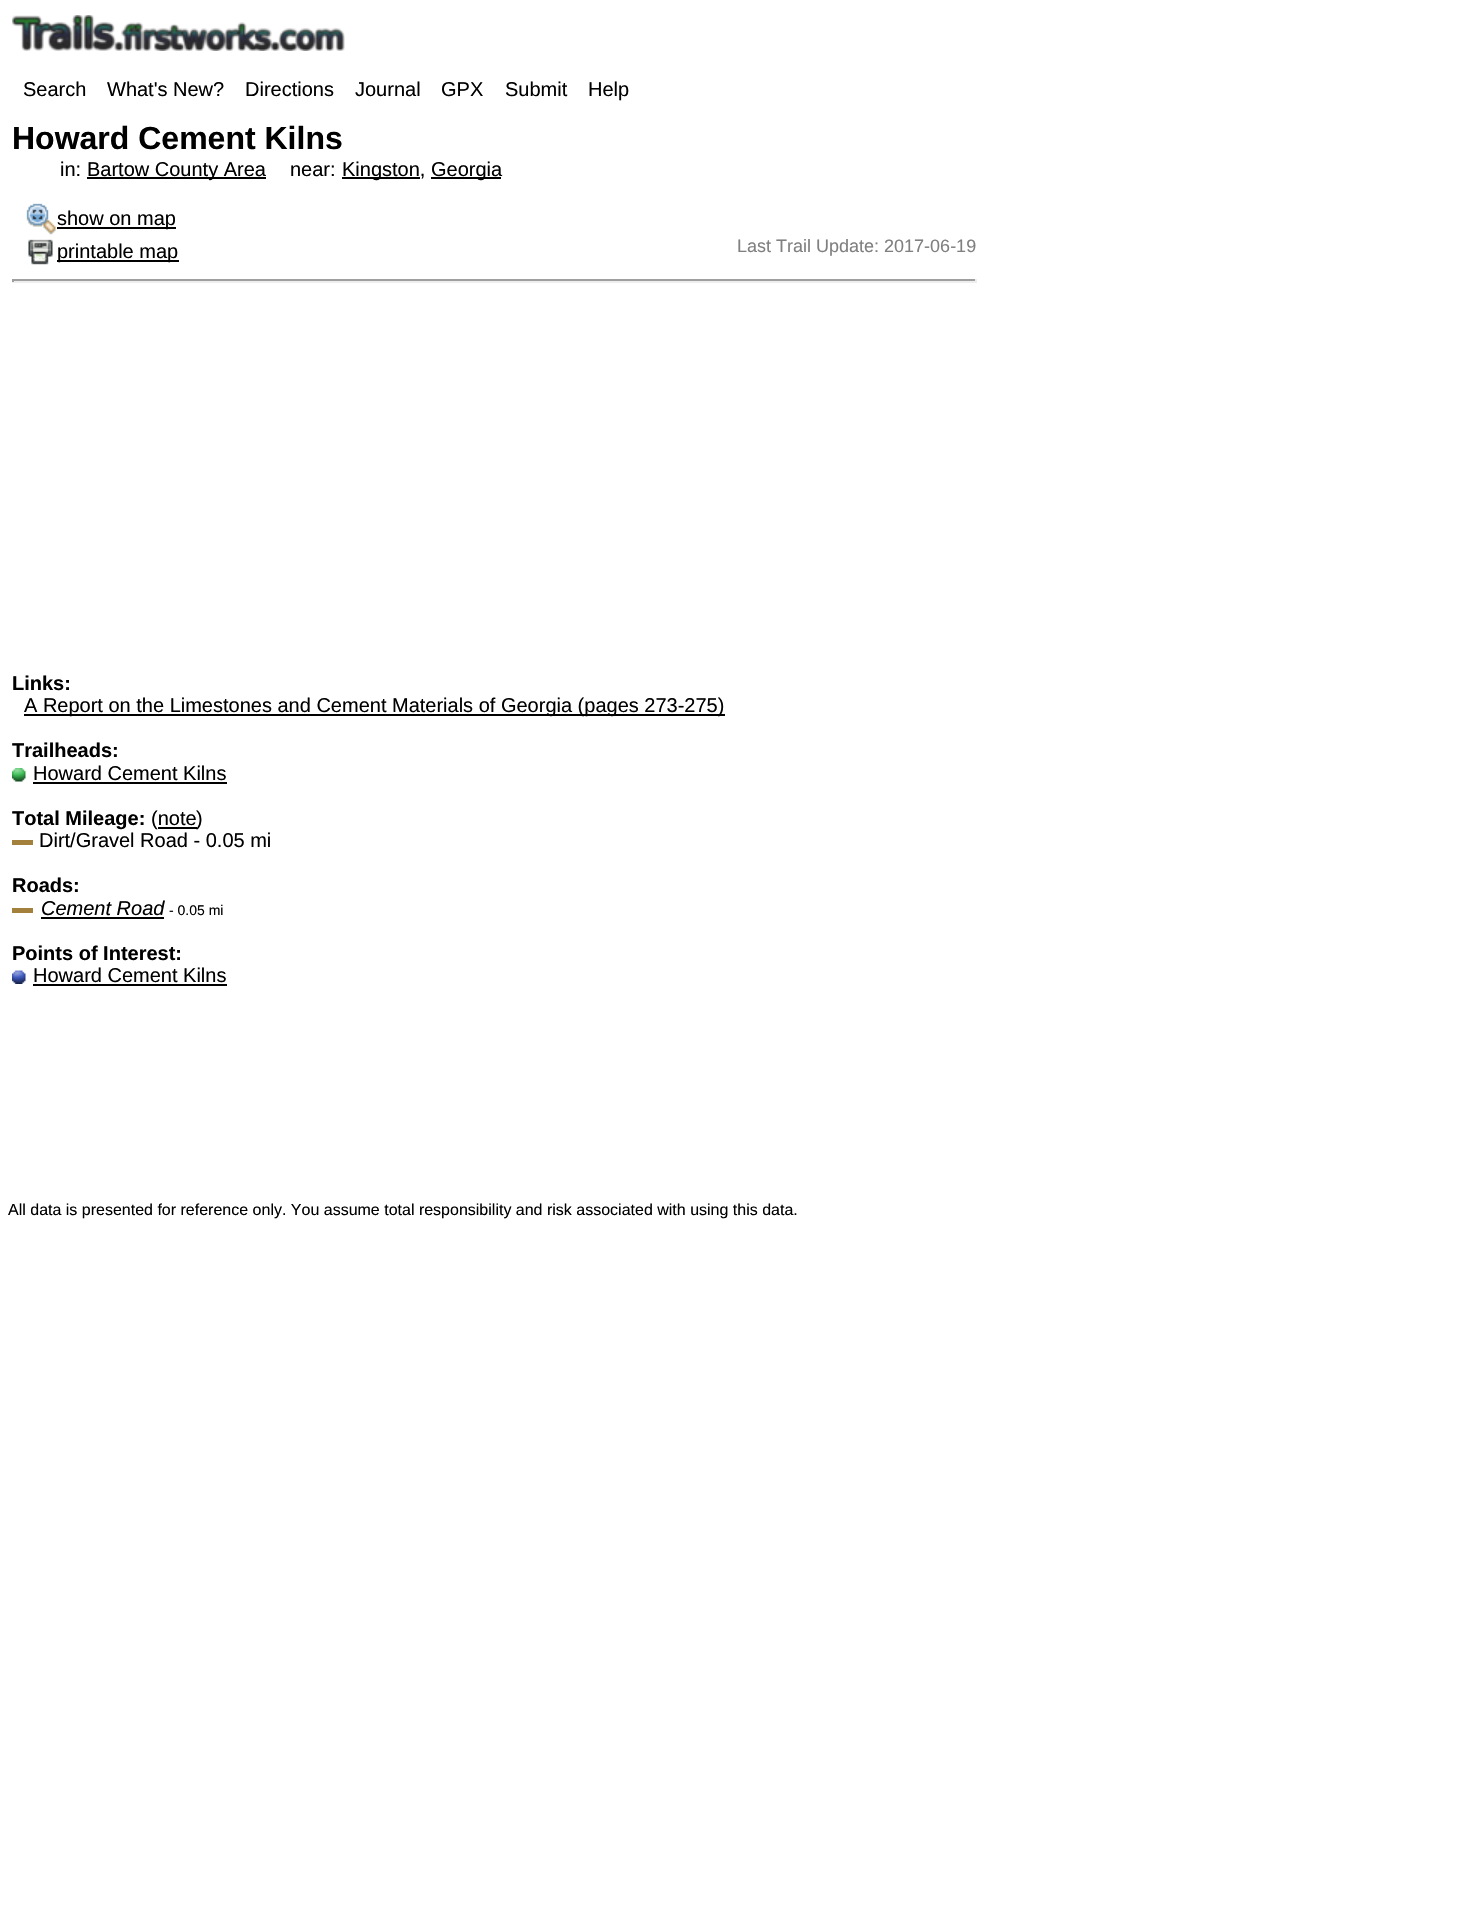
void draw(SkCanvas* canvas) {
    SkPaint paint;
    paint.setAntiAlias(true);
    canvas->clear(0xFFFFFFFF);
    canvas->drawImageRect(SkImages::DeferredFromEncodedData(SkData::MakeFromFileName("img1.png")), SkRect::MakeXYWH(12, 15, 333, 36), SkSamplingOptions());
    SkFont font1(fontMgr->matchFamilyStyle("Liberation Sans", SkFontStyle::Normal()), 20);
    font1.setSubpixel(true);
    paint.setColor(0xFF000000);
    canvas->drawString("Search", 23, 96, font1, paint);
    canvas->drawString("What's New?", 107, 96, font1, paint);
    canvas->drawString("Directions", 245, 96, font1, paint);
    canvas->drawString("Journal", 355, 96, font1, paint);
    canvas->drawString("GPX", 441, 96, font1, paint);
    canvas->drawString("Submit", 505, 96, font1, paint);
    canvas->drawString("Help", 588, 96, font1, paint);
    SkFont font2(fontMgr->matchFamilyStyle("Liberation Sans", SkFontStyle::Bold()), 32);
    font2.setSubpixel(true);
    canvas->drawString("Howard Cement Kilns", 12, 149, font2, paint);
    canvas->drawString("in:", 60, 176, font1, paint);
    canvas->drawRect(SkRect::MakeXYWH(87, 177, 179, 2), paint);
    canvas->drawString("Bartow County Area", 87, 176, font1, paint);
    canvas->drawString("near:", 290, 176, font1, paint);
    canvas->drawRect(SkRect::MakeXYWH(342, 177, 78, 2), paint);
    canvas->drawString("Kingston,", 342, 176, font1, paint);
    canvas->drawRect(SkRect::MakeXYWH(431, 177, 70, 2), paint);
    canvas->drawString("Georgia", 431, 176, font1, paint);
    canvas->drawImageRect(SkImages::DeferredFromEncodedData(SkData::MakeFromFileName("img2.png")), SkRect::MakeXYWH(26, 203, 30, 32), SkSamplingOptions());
    canvas->drawRect(SkRect::MakeXYWH(57, 227, 119, 2), paint);
    canvas->drawString("show on map", 57, 225, font1, paint);
    canvas->drawImageRect(SkImages::DeferredFromEncodedData(SkData::MakeFromFileName("img3.png")), SkRect::MakeXYWH(28, 239, 25, 26), SkSamplingOptions());
    canvas->drawRect(SkRect::MakeXYWH(57, 260, 122, 2), paint);
    canvas->drawString("printable map", 57, 258, font1, paint);
    SkFont font3(fontMgr->matchFamilyStyle("Liberation Sans", SkFontStyle::Normal()), 18);
    font3.setSubpixel(true);
    paint.setColor(0xFF808080);
    canvas->drawString("Last Trail Update: 2017-06-19", 737, 252, font3, paint);
    paint.setColor(0xFF9F9F9F);
    canvas->drawRect(SkRect::MakeXYWH(12, 279, 965, 2), paint);
    paint.setColor(0xFFEEEEEE);
    canvas->drawRect(SkRect::MakeXYWH(975, 279, 2, 3), paint);
    canvas->drawRect(SkRect::MakeXYWH(12, 281, 965, 2), paint);
    paint.setColor(0xFF9F9F9F);
    canvas->drawRect(SkRect::MakeXYWH(12, 279, 2, 3), paint);
    SkFont font4(fontMgr->matchFamilyStyle("Liberation Sans", SkFontStyle::Bold()), 20);
    font4.setSubpixel(true);
    paint.setColor(0xFF000000);
    canvas->drawString("Links:", 12, 690, font4, paint);
    canvas->drawRect(SkRect::MakeXYWH(24, 714, 701, 2), paint);
    canvas->drawString("A Report on the Limestones and Cement Materials of Georgia (pages 273-275)", 24, 712, font1, paint);
    canvas->drawString("Trailheads:", 12, 757, font4, paint);
    canvas->drawImageRect(SkImages::DeferredFromEncodedData(SkData::MakeFromFileName("img4.png")), SkRect::MakeXYWH(12, 768, 14, 14), SkSamplingOptions());
    canvas->drawString("Howard Cement Kilns", 33, 780, font1, paint);
    canvas->drawRect(SkRect::MakeXYWH(33, 782, 194, 2), paint);
    canvas->drawString("Total Mileage:", 12, 825, font4, paint);
    canvas->drawString("(note", 151, 825, font1, paint);
    canvas->drawRect(SkRect::MakeXYWH(158, 827, 39, 2), paint);
    canvas->drawString(")", 196, 825, font1, paint);
    paint.setColor(0xFFA3803C);
    canvas->drawRect(SkRect::MakeXYWH(12, 840, 21, 5), paint);
    paint.setColor(0xFF000000);
    canvas->drawString("Dirt/Gravel Road - 0.05 mi", 39, 847, font1, paint);
    canvas->drawString("Roads:", 12, 892, font4, paint);
    paint.setColor(0xFFA3803C);
    canvas->drawRect(SkRect::MakeXYWH(12, 908, 21, 5), paint);
    SkFont font5(fontMgr->matchFamilyStyle("Liberation Sans", SkFontStyle::Italic()), 20);
    font5.setSubpixel(true);
    paint.setColor(0xFF000000);
    canvas->drawString("Cement Road", 41, 915, font5, paint);
    canvas->drawRect(SkRect::MakeXYWH(41, 917, 123, 2), paint);
    SkFont font6(fontMgr->matchFamilyStyle("Liberation Sans", SkFontStyle::Normal()), 14);
    font6.setSubpixel(true);
    canvas->drawString("- 0.05 mi", 169, 915, font6, paint);
    canvas->drawString("Points of Interest:", 12, 960, font4, paint);
    canvas->drawImageRect(SkImages::DeferredFromEncodedData(SkData::MakeFromFileName("img5.png")), SkRect::MakeXYWH(12, 970, 14, 14), SkSamplingOptions());
    canvas->drawString("Howard Cement Kilns", 33, 982, font1, paint);
    canvas->drawRect(SkRect::MakeXYWH(33, 984, 194, 2), paint);
    SkFont font7(fontMgr->matchFamilyStyle("Liberation Sans", SkFontStyle::Normal()), 16);
    font7.setSubpixel(true);
    canvas->drawString("All data is presented for reference only. You assume total responsibility and risk associated with using this data.", 8, 1215, font7, paint);
}
